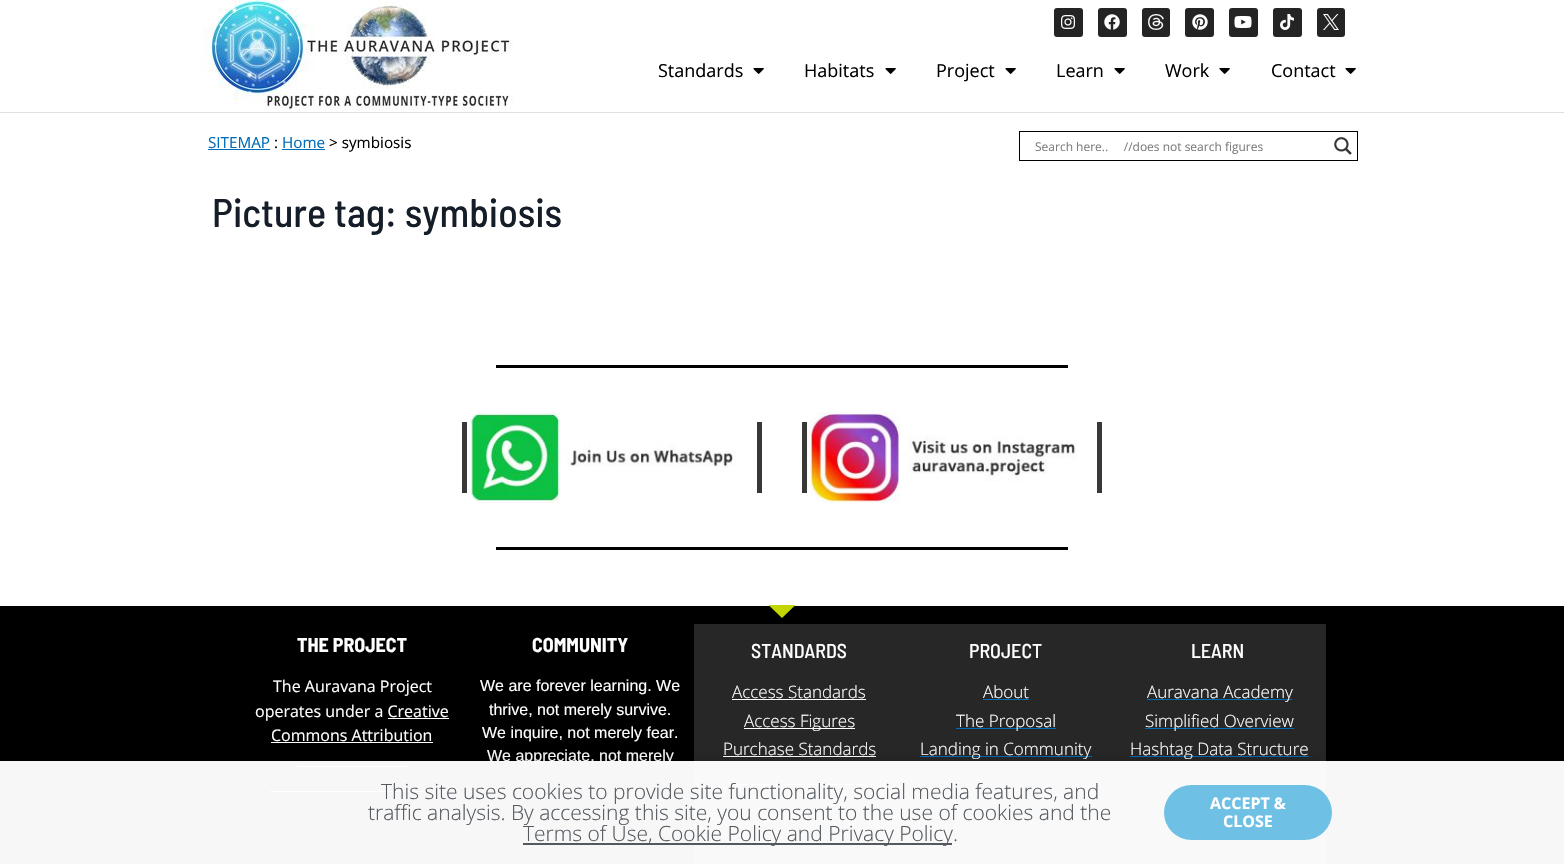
void draw(SkCanvas* canvas) {
    SkPaint paint;
    paint.setAntiAlias(true);
    canvas->clear(0xFFFFFFFF);
    paint.setColor(0xFFE0E0E0);
    canvas->drawRect(SkRect::MakeXYWH(0, 112, 1564, 1), paint);
    canvas->drawImageRect(SkImages::DeferredFromEncodedData(SkData::MakeFromFileName("img1.png")), SkRect::MakeXYWH(202, 0, 312, 110), SkSamplingOptions());
    paint.setColor(0xFF242424);
    canvas->drawRoundRect(SkRect::MakeXYWH(1054, 8, 29, 29), 3, 3, paint);
    canvas->drawImageRect(SkImages::DeferredFromEncodedData(SkData::MakeFromFileName("img2.png")), SkRect::MakeXYWH(1061, 15, 14, 14), SkSamplingOptions());
    canvas->drawRoundRect(SkRect::MakeXYWH(1098, 8, 29, 29), 3, 3, paint);
    canvas->drawImageRect(SkImages::DeferredFromEncodedData(SkData::MakeFromFileName("img3.png")), SkRect::MakeXYWH(1104, 14, 16, 16), SkSamplingOptions());
    canvas->drawRoundRect(SkRect::MakeXYWH(1142, 8, 28, 29), 3, 3, paint);
    canvas->drawImageRect(SkImages::DeferredFromEncodedData(SkData::MakeFromFileName("img4.png")), SkRect::MakeXYWH(1148, 14, 16, 16), SkSamplingOptions());
    canvas->drawRoundRect(SkRect::MakeXYWH(1185, 8, 29, 29), 3, 3, paint);
    canvas->drawImageRect(SkImages::DeferredFromEncodedData(SkData::MakeFromFileName("img5.png")), SkRect::MakeXYWH(1192, 14, 16, 16), SkSamplingOptions());
    canvas->drawRoundRect(SkRect::MakeXYWH(1229, 8, 29, 29), 3, 3, paint);
    canvas->drawImageRect(SkImages::DeferredFromEncodedData(SkData::MakeFromFileName("img6.png")), SkRect::MakeXYWH(1234, 16, 18, 12), SkSamplingOptions());
    canvas->drawRoundRect(SkRect::MakeXYWH(1273, 8, 29, 29), 3, 3, paint);
    canvas->drawImageRect(SkImages::DeferredFromEncodedData(SkData::MakeFromFileName("img7.png")), SkRect::MakeXYWH(1280, 14, 14, 16), SkSamplingOptions());
    canvas->drawRoundRect(SkRect::MakeXYWH(1317, 8, 28, 29), 3, 3, paint);
    canvas->drawImageRect(SkImages::DeferredFromEncodedData(SkData::MakeFromFileName("img8.png")), SkRect::MakeXYWH(1323, 14, 16, 16), SkSamplingOptions());
    SkFont font1(fontMgr->matchFamilyStyle("Open Sans", SkFontStyle::Normal()), 18);
    font1.setSubpixel(true);
    paint.setColor(0xFF000000);
    canvas->drawString("Standards", 658, 77, font1, paint);
    canvas->drawImageRect(SkImages::DeferredFromEncodedData(SkData::MakeFromFileName("img9.png")), SkRect::MakeXYWH(753, 68, 11, 6), SkSamplingOptions());
    canvas->drawString("Habitats", 804, 77, font1, paint);
    canvas->drawImageRect(SkImages::DeferredFromEncodedData(SkData::MakeFromFileName("img9.png")), SkRect::MakeXYWH(885, 68, 11, 6), SkSamplingOptions());
    canvas->drawString("Project", 936, 77, font1, paint);
    canvas->drawImageRect(SkImages::DeferredFromEncodedData(SkData::MakeFromFileName("img9.png")), SkRect::MakeXYWH(1005, 68, 11, 6), SkSamplingOptions());
    canvas->drawString("Learn", 1056, 77, font1, paint);
    canvas->drawImageRect(SkImages::DeferredFromEncodedData(SkData::MakeFromFileName("img9.png")), SkRect::MakeXYWH(1114, 68, 11, 6), SkSamplingOptions());
    canvas->drawString("Work", 1165, 77, font1, paint);
    canvas->drawImageRect(SkImages::DeferredFromEncodedData(SkData::MakeFromFileName("img9.png")), SkRect::MakeXYWH(1219, 68, 11, 6), SkSamplingOptions());
    canvas->drawString("Contact", 1271, 77, font1, paint);
    canvas->drawImageRect(SkImages::DeferredFromEncodedData(SkData::MakeFromFileName("img9.png")), SkRect::MakeXYWH(1345, 68, 11, 6), SkSamplingOptions());
    SkFont font2(fontMgr->matchFamilyStyle("Open Sans", SkFontStyle::Normal()), 15.25f);
    font2.setSubpixel(true);
    paint.setColor(0xFF006BB7);
    canvas->drawString("SITEMAP", 208, 148, font2, paint);
    canvas->drawRect(SkRect::MakeXYWH(208, 149, 62, 1), paint);
    paint.setColor(0xFF000000);
    canvas->drawString(":", 274, 148, font2, paint);
    paint.setColor(0xFF006BB7);
    canvas->drawString("Home", 282, 148, font2, paint);
    canvas->drawRect(SkRect::MakeXYWH(282, 149, 43, 1), paint);
    paint.setColor(0xFF000000);
    canvas->drawString("> symbiosis", 329, 148, font2, paint);
    paint.setStyle(SkPaint::kStroke_Style);
    paint.setStrokeWidth(1);
    canvas->drawRect(SkRect::MakeXYWH(1019.5f, 131.5f, 338, 29), paint);
    SkFont font3(fontMgr->matchFamilyStyle("Open Sans", SkFontStyle::Normal()), 12);
    font3.setSubpixel(true);
    paint.setStyle(SkPaint::kFill_Style);
    paint.setColor(0xFF7D7D7D);
    canvas->drawString("Search here..     //does not search figures", 1035, 151, font3, paint);
    canvas->drawImageRect(SkImages::DeferredFromEncodedData(SkData::MakeFromFileName("img10.png")), SkRect::MakeXYWH(1334, 137, 18, 18), SkSamplingOptions());
    SkFont font4(fontMgr->matchFamilyStyle("Barlow Semi Condensed", SkFontStyle(500, SkFontStyle::kNormal_Width, SkFontStyle::kUpright_Slant)), 40);
    font4.setSubpixel(true);
    paint.setColor(0xFF151D28);
    canvas->drawString("Picture tag: symbiosis", 212, 227, font4, paint);
    paint.setColor(0xFF000000);
    canvas->drawRect(SkRect::MakeXYWH(496, 365, 572, 3), paint);
    paint.setColor(0xFF383838);
    canvas->drawRect(SkRect::MakeXYWH(757, 422, 5, 71), paint);
    canvas->drawRect(SkRect::MakeXYWH(462, 422, 5, 71), paint);
    canvas->drawImageRect(SkImages::DeferredFromEncodedData(SkData::MakeFromFileName("img11.png")), SkRect::MakeXYWH(467, 412, 269, 91), SkSamplingOptions());
    canvas->drawRect(SkRect::MakeXYWH(1097, 422, 5, 71), paint);
    canvas->drawRect(SkRect::MakeXYWH(802, 422, 5, 71), paint);
    canvas->drawImageRect(SkImages::DeferredFromEncodedData(SkData::MakeFromFileName("img12.png")), SkRect::MakeXYWH(807, 412, 270, 91), SkSamplingOptions());
    paint.setColor(0xFF000000);
    canvas->drawRect(SkRect::MakeXYWH(496, 547, 572, 3), paint);
    canvas->drawRect(SkRect::MakeXYWH(0, 606, 1564, 258), paint);
    paint.setColor(0xFFC4D602);
    canvas->drawPath(SkPathBuilder().moveTo(782, 618).lineTo(768.5f, 605).lineTo(795.5f, 605).close().detach(), paint);
    SkFont font5(fontMgr->matchFamilyStyle("Barlow Semi Condensed", SkFontStyle::Bold()), 20);
    font5.setSubpixel(true);
    paint.setColor(0xFFFFFFFF);
    canvas->drawString("THE PROJECT", 297, 652, font5, paint);
    SkFont font6(fontMgr->matchFamilyStyle("Open Sans", SkFontStyle::Normal()), 16);
    font6.setSubpixel(true);
    canvas->drawString("The Auravana Project", 273, 692, font6, paint);
    canvas->drawString("operates under a Creative", 255, 717, font6, paint);
    canvas->drawRect(SkRect::MakeXYWH(388, 718, 61, 1), paint);
    canvas->drawString("Commons Attribution", 271, 741, font6, paint);
    canvas->drawRect(SkRect::MakeXYWH(271, 742, 162, 1), paint);
    canvas->drawRect(SkRect::MakeXYWH(297, 766, 110, 1), paint);
    canvas->drawRect(SkRect::MakeXYWH(270, 791, 156, 1), paint);
    canvas->drawString("COMMUNITY", 532, 652, font5, paint);
    SkFont font7(fontMgr->matchFamilyStyle("Liberation Sans", SkFontStyle::Normal()), 16);
    font7.setSubpixel(true);
    canvas->drawString("We are forever learning. We", 480, 691, font7, paint);
    canvas->drawString("thrive, not merely survive.", 489, 715, font7, paint);
    canvas->drawString("We inquire, not merely fear.", 482, 738, font7, paint);
    canvas->drawString("We appreciate, not merely", 487, 761, font7, paint);
    paint.setColor(0xFF272727);
    canvas->drawRect(SkRect::MakeXYWH(694, 624, 632, 240), paint);
    SkFont font8(fontMgr->matchFamilyStyle("Barlow Semi Condensed", SkFontStyle(500, SkFontStyle::kNormal_Width, SkFontStyle::kUpright_Slant)), 20);
    font8.setSubpixel(true);
    paint.setColor(0xFFFFFFFF);
    canvas->drawString("STANDARDS", 751, 658, font8, paint);
    SkFont font9(fontMgr->matchFamilyStyle("Open Sans", SkFontStyle(300, SkFontStyle::kNormal_Width, SkFontStyle::kUpright_Slant)), 17);
    font9.setSubpixel(true);
    canvas->drawString("Access Standards", 732, 698, font9, paint);
    canvas->drawRect(SkRect::MakeXYWH(732, 699, 134, 1), paint);
    canvas->drawRect(SkRect::MakeXYWH(744, 728, 111, 1), paint);
    canvas->drawString("Access Figures", 744, 727, font9, paint);
    canvas->drawString("Purchase Standards", 723, 755, font9, paint);
    canvas->drawRect(SkRect::MakeXYWH(723, 756, 153, 1), paint);
    canvas->drawRect(SkRect::MakeXYWH(735, 784, 128, 1), paint);
    canvas->drawString("PROJECT", 969, 658, font8, paint);
    canvas->drawString("About", 983, 698, font9, paint);
    paint.setColor(0xFF006BB7);
    canvas->drawRect(SkRect::MakeXYWH(983, 699, 46, 1), paint);
    canvas->drawRect(SkRect::MakeXYWH(956, 728, 100, 1), paint);
    paint.setColor(0xFFFFFFFF);
    canvas->drawString("The Proposal", 956, 727, font9, paint);
    paint.setColor(0xFF006BB7);
    canvas->drawRect(SkRect::MakeXYWH(920, 756, 172, 1), paint);
    paint.setColor(0xFFFFFFFF);
    canvas->drawString("Landing in Community", 920, 755, font9, paint);
    paint.setColor(0xFF006BB7);
    canvas->drawRect(SkRect::MakeXYWH(966, 784, 85, 1), paint);
    canvas->drawRect(SkRect::MakeXYWH(935, 813, 142, 1), paint);
    canvas->drawRect(SkRect::MakeXYWH(990, 841, 32, 1), paint);
    paint.setColor(0xFFFFFFFF);
    canvas->drawString("LEARN", 1191, 658, font8, paint);
    paint.setColor(0xFF006BB7);
    canvas->drawRect(SkRect::MakeXYWH(1147, 699, 145, 1), paint);
    paint.setColor(0xFFFFFFFF);
    canvas->drawString("Auravana Academy", 1147, 698, font9, paint);
    paint.setColor(0xFF006BB7);
    canvas->drawRect(SkRect::MakeXYWH(1145, 728, 149, 1), paint);
    paint.setColor(0xFFFFFFFF);
    canvas->drawString("Simplified Overview", 1145, 727, font9, paint);
    paint.setColor(0xFF006BB7);
    canvas->drawRect(SkRect::MakeXYWH(1130, 756, 179, 1), paint);
    paint.setColor(0xFFFFFFFF);
    canvas->drawString("Hashtag Data Structure", 1130, 755, font9, paint);
    paint.setColor(0xFF006BB7);
    canvas->drawRect(SkRect::MakeXYWH(1118, 784, 198, 1), paint);
    canvas->drawRect(SkRect::MakeXYWH(1115, 813, 50, 1), paint);
    canvas->drawRect(SkRect::MakeXYWH(1177, 841, 80, 1), paint);
    canvas->save();
    canvas->clipRect(SkRect::MakeXYWH(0, 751, 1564, 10));
    paint.setColor(0x33000000);
    paint.setMaskFilter(SkMaskFilter::MakeBlur(kNormal_SkBlurStyle, 11.5f));
    canvas->drawRect(SkRect::MakeXYWH(-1, 766, 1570, 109), paint);
    paint.setMaskFilter(nullptr);
    canvas->restore();
    paint.setColor(0xF7FFFFFF);
    canvas->drawRect(SkRect::MakeXYWH(0, 761, 1564, 103), paint);
    SkFont font10(fontMgr->matchFamilyStyle("Open Sans", SkFontStyle(300, SkFontStyle::kNormal_Width, SkFontStyle::kUpright_Slant)), 21);
    font10.setSubpixel(true);
    paint.setColor(0xFF54595F);
    canvas->drawString("This site uses cookies to provide site functionality, social media features, and", 381, 799, font10, paint);
    canvas->drawString("traffic analysis. By accessing this site, you consent to the use of cookies and the", 368, 820, font10, paint);
    canvas->drawRect(SkRect::MakeXYWH(523, 843, 429, 2), paint);
    canvas->drawString("Terms of Use, Cookie Policy and Privacy Policy.", 523, 841, font10, paint);
    paint.setColor(0xFF6EC1E4);
    canvas->drawRoundRect(SkRect::MakeXYWH(1164, 785, 168, 55), 27.5f, 27.5f, paint);
    SkFont font11(fontMgr->matchFamilyStyle("Open Sans", SkFontStyle::Bold()), 16);
    font11.setSubpixel(true);
    paint.setColor(0xFFFFFFFF);
    canvas->drawString("ACCEPT &", 1210, 809, font11, paint);
    canvas->drawString("CLOSE", 1223, 827, font11, paint);
}
